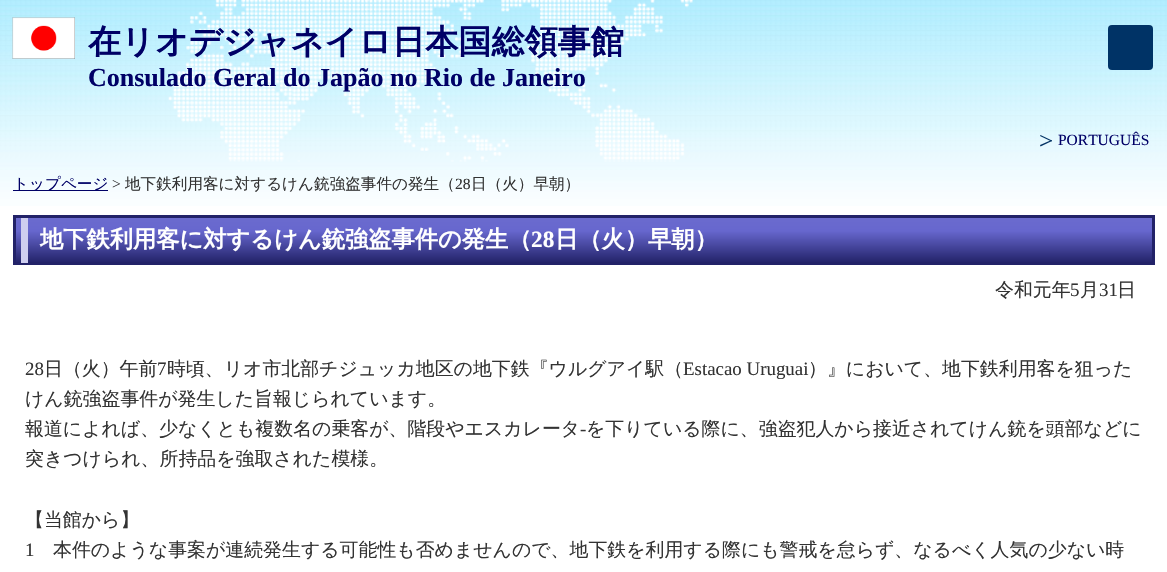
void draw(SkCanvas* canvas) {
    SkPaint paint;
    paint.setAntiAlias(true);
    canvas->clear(0xFFFFFFFF);
    canvas->drawImageRect(SkImages::DeferredFromEncodedData(SkData::MakeFromFileName("img1.png")), SkRect::MakeXYWH(0, 0, 1167, 206), SkSamplingOptions());
    canvas->drawImageRect(SkImages::DeferredFromEncodedData(SkData::MakeFromFileName("img2.png")), SkRect::MakeXYWH(168, 0, 525, 162), SkSamplingOptions());
    canvas->drawImageRect(SkImages::DeferredFromEncodedData(SkData::MakeFromFileName("img3.png")), SkRect::MakeXYWH(12, 17, 63, 42), SkSamplingOptions());
    SkFont font1(fontMgr->matchFamilyStyle("WenQuanYi Zen Hei", SkFontStyle::Bold()), 33.1f);
    font1.setSubpixel(true);
    paint.setColor(0xFF000066);
    canvas->drawString("在リオデジャネイロ日本国総領事館", 88, 53, font1, paint);
    SkFont font2(fontMgr->matchFamilyStyle("Liberation Serif", SkFontStyle::Bold()), 26);
    font2.setSubpixel(true);
    canvas->drawString("Consulado Geral do Japão no Rio de Janeiro", 88, 86, font2, paint);
    paint.setColor(0xFF003366);
    canvas->drawRoundRect(SkRect::MakeXYWH(1108, 25, 45, 45), 4, 4, paint);
    paint.setColor(0xFF043465);
    canvas->drawPath(SkPathBuilder().moveTo(1051.5f, 141.5f).lineTo(1040, 136).lineTo(1040.5f, 135).lineTo(1052, 140.5f).close().detach(), paint);
    SkFont font3(fontMgr->matchFamilyStyle("Liberation Serif", SkFontStyle::Normal()), 15.5f);
    font3.setSubpixel(true);
    paint.setColor(0xFF000066);
    canvas->drawString("PORTUGUÊS", 1058, 145, font3, paint);
    paint.setColor(0xFF043465);
    canvas->drawPath(SkPathBuilder().moveTo(1052, 141).lineTo(1040.5f, 146.5f).lineTo(1040, 145).lineTo(1051.5f, 140).close().detach(), paint);
    paint.setColor(0xFF000066);
    canvas->drawRect(SkRect::MakeXYWH(13, 190, 95, 1), paint);
    SkFont font4(fontMgr->matchFamilyStyle("WenQuanYi Zen Hei", SkFontStyle(500, SkFontStyle::kNormal_Width, SkFontStyle::kUpright_Slant)), 15.6f);
    font4.setSubpixel(true);
    canvas->drawString("トップページ", 13, 189, font4, paint);
    SkFont font5(fontMgr->matchFamilyStyle("Liberation Serif", SkFontStyle::Normal()), 15.6f);
    font5.setSubpixel(true);
    paint.setColor(0xFF333333);
    canvas->drawString(">", 112, 189, font5, paint);
    canvas->drawString("地下鉄利用客に対するけん銃強盗事件の発生（", 125, 189, font4, paint);
    canvas->drawString("28", 455, 189, font5, paint);
    canvas->drawString("日（火）早朝）", 471, 189, font4, paint);
    {
        const SkColor colors[] = {0xFF6B6BCE, 0xFF6767CE, 0xFF222268};
        const float stops[] = {0, 0.3f, 1};
        const SkPoint ends[] = {{584, 217}, {584, 263}};
        paint.setShader(SkGradientShader::MakeLinear(ends, colors, stops, 3, SkTileMode::kClamp));
        paint.setAlpha(255);
    }
    canvas->drawRect(SkRect::MakeXYWH(16, 218, 1136, 44), paint);
    paint.setStyle(SkPaint::kStroke_Style);
    paint.setStrokeWidth(3);
    paint.setShader(nullptr);
    paint.setColor(0xFF222268);
    canvas->drawRect(SkRect::MakeXYWH(14.5f, 216.5f, 1139, 47), paint);
    paint.setStyle(SkPaint::kFill_Style);
    paint.setColor(0xFFCECEEF);
    canvas->drawRect(SkRect::MakeXYWH(21, 218, 7, 45), paint);
    SkFont font6(fontMgr->matchFamilyStyle("WenQuanYi Zen Hei", SkFontStyle::Bold()), 23.25f);
    font6.setSubpixel(true);
    paint.setColor(0xFFFFFFFF);
    canvas->drawString("地下鉄利用客に対するけん銃強盗事件の発生（", 40, 247, font6, paint);
    SkFont font7(fontMgr->matchFamilyStyle("Liberation Serif", SkFontStyle::Bold()), 23.25f);
    font7.setSubpixel(true);
    canvas->drawString("28", 531, 247, font7, paint);
    canvas->drawString("日（火）早朝）", 555, 247, font6, paint);
    SkFont font8(fontMgr->matchFamilyStyle("WenQuanYi Zen Hei", SkFontStyle(500, SkFontStyle::kNormal_Width, SkFontStyle::kUpright_Slant)), 18.9f);
    font8.setSubpixel(true);
    paint.setColor(0xFF333333);
    canvas->drawString("令和元年", 995, 296, font8, paint);
    SkFont font9(fontMgr->matchFamilyStyle("Liberation Serif", SkFontStyle::Normal()), 18.9f);
    font9.setSubpixel(true);
    canvas->drawString("5", 1070, 296, font9, paint);
    canvas->drawString("月", 1080, 296, font8, paint);
    canvas->drawString("31", 1099, 296, font9, paint);
    canvas->drawString("日", 1117, 296, font8, paint);
    canvas->drawString("28", 25, 375, font9, paint);
    canvas->drawString("日（火）午前", 44, 375, font8, paint);
    canvas->drawString("7", 157, 375, font9, paint);
    canvas->drawString("時頃、リオ市北部チジュッカ地区の地下鉄『ウルグアイ駅（", 167, 375, font8, paint);
    canvas->drawString("Estacao Uruguai", 683, 375, font9, paint);
    canvas->drawString("）』において、地下鉄利用客を狙った", 808, 375, font8, paint);
    canvas->drawString("けん銃強盗事件が発生した旨報じられています。", 25, 405, font8, paint);
    canvas->drawString("報道によれば、少なくとも複数名の乗客が、階段やエスカレータ", 25, 435, font8, paint);
    canvas->drawString("-", 580, 435, font9, paint);
    canvas->drawString("を下りている際に、強盗犯人から接近されてけん銃を頭部などに", 586, 435, font8, paint);
    canvas->drawString("突きつけられ、所持品を強取された模様。", 25, 465, font8, paint);
    canvas->drawString("【当館から】", 25, 526, font8, paint);
    canvas->drawString("1", 25, 556, font9, paint);
    canvas->drawString("本件のような事案が連続発生する可能性も否めませんので、地下鉄を利用する際にも警戒を怠らず、なるべく人気の少ない時", 53, 556, font8, paint);
}
